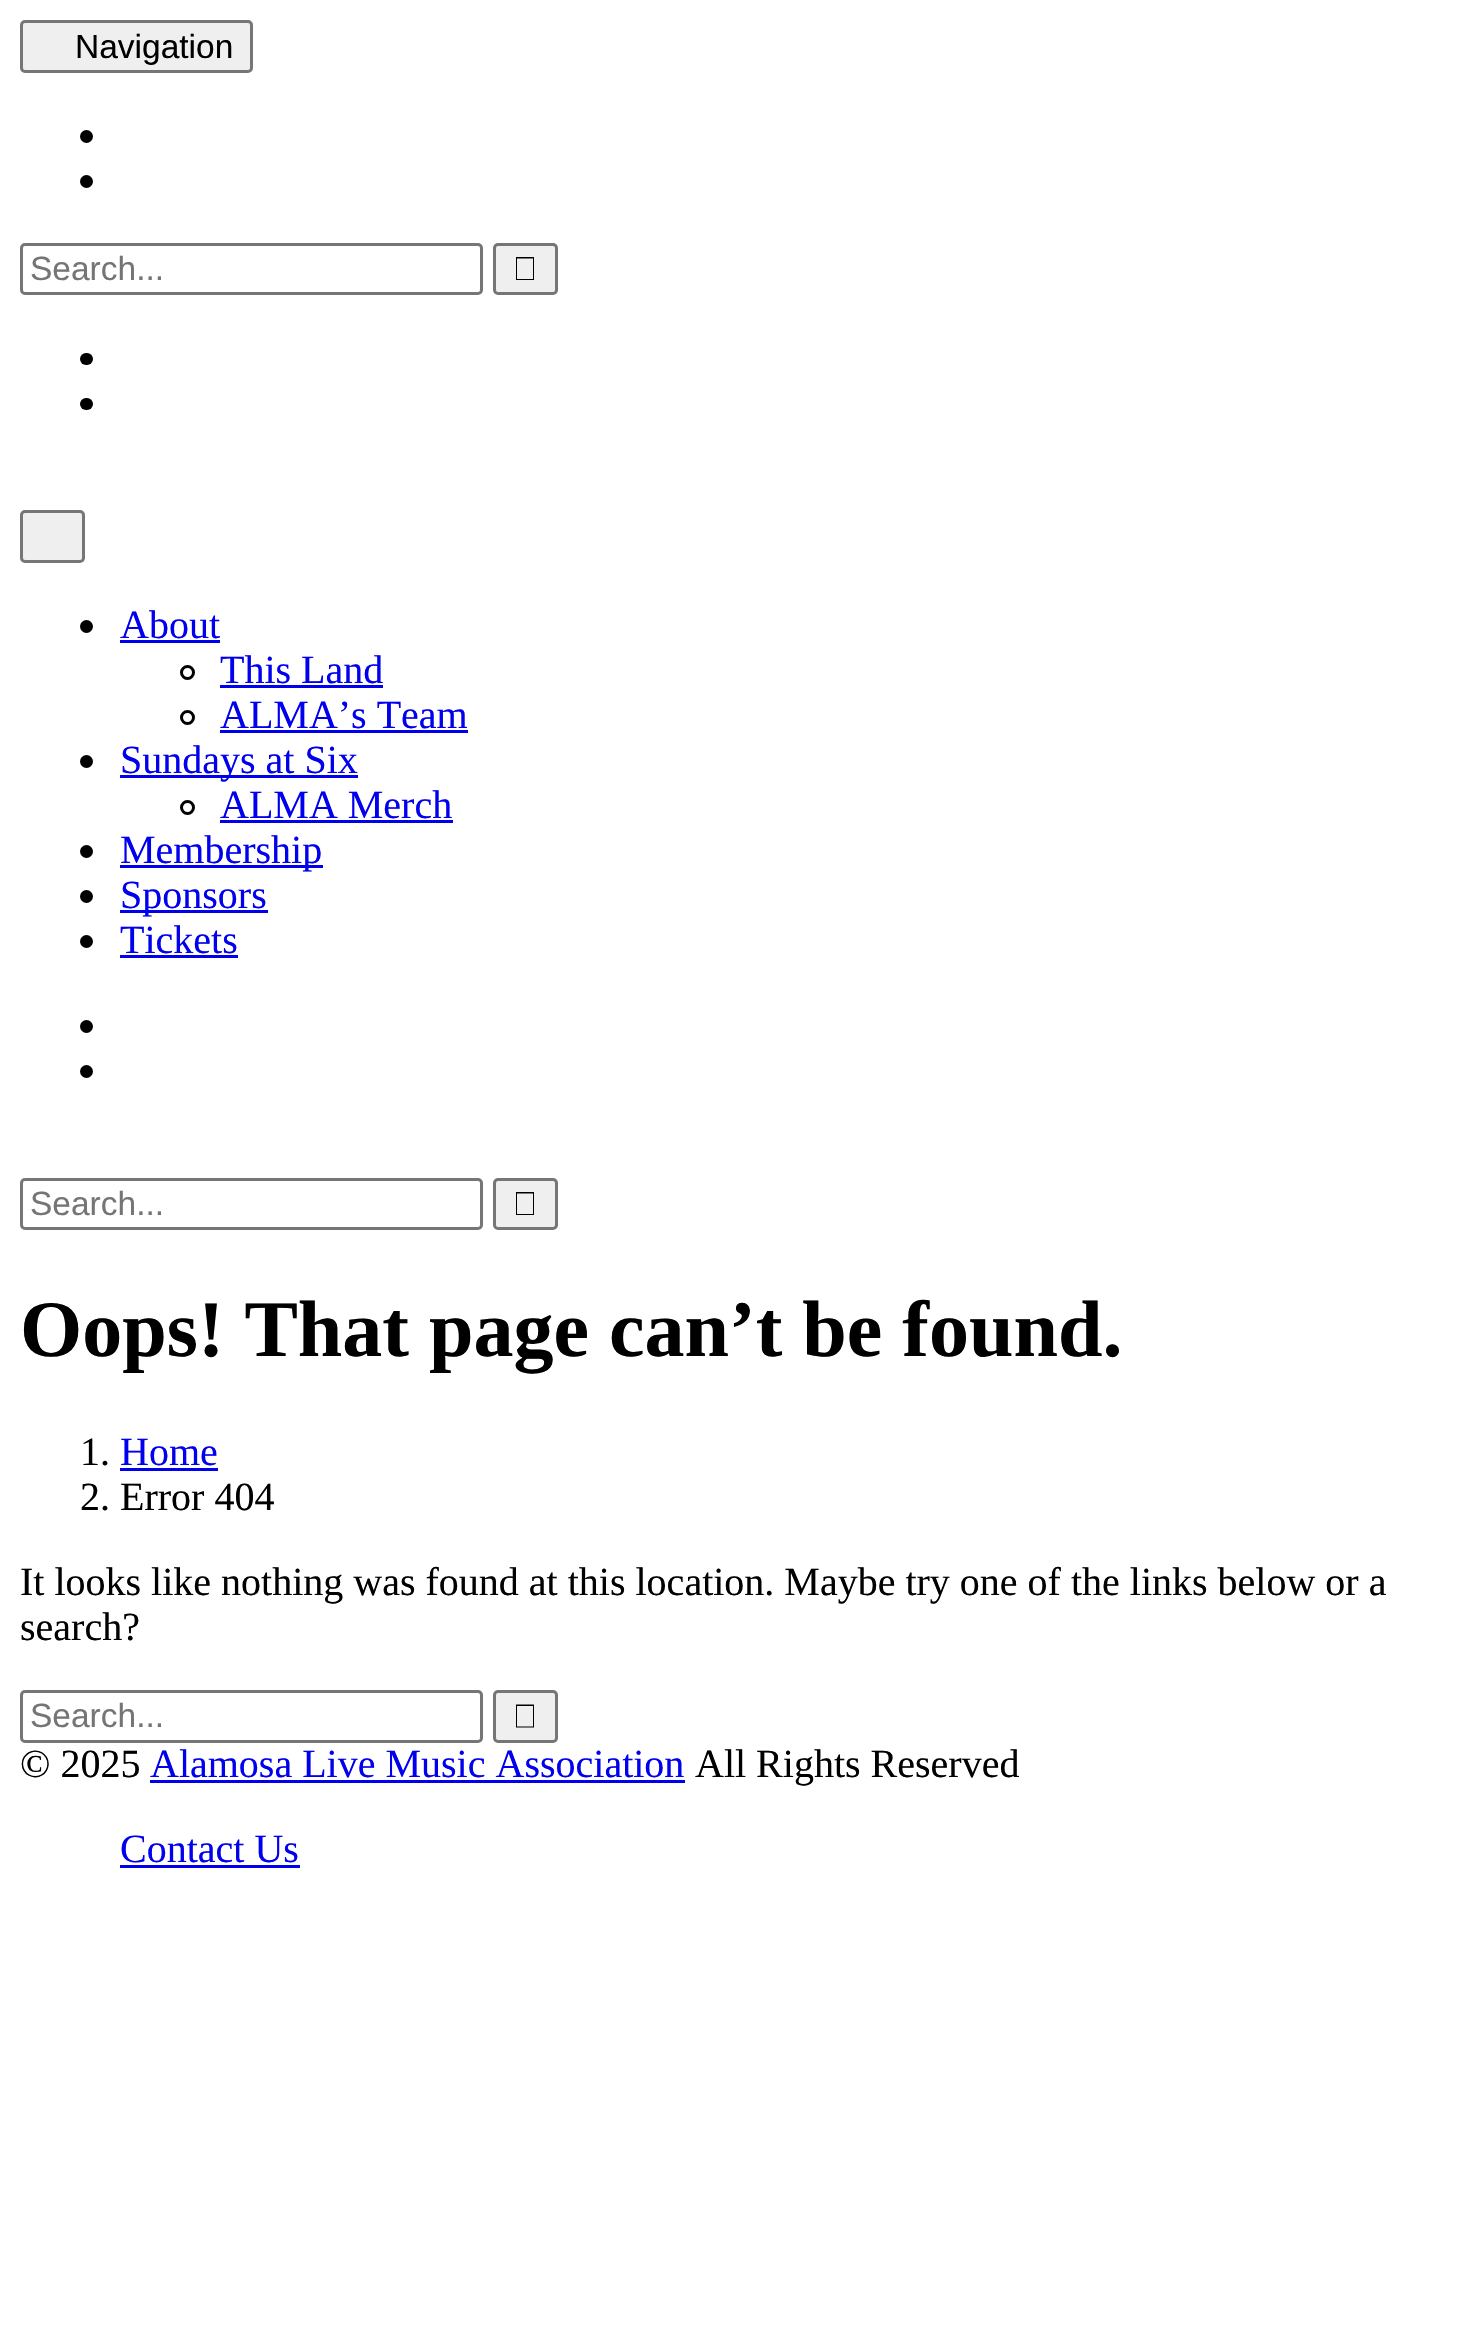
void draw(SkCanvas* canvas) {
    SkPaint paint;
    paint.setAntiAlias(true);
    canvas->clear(0xFFFFFFFF);
    paint.setColor(0xFFEFEFEF);
    canvas->drawRoundRect(SkRect::MakeXYWH(21.5f, 21.5f, 230, 50), 3.5f, 3.5f, paint);
    paint.setStyle(SkPaint::kStroke_Style);
    paint.setStrokeWidth(3);
    paint.setColor(0xFF767676);
    canvas->drawRoundRect(SkRect::MakeXYWH(21.5f, 21.5f, 230, 50), 3.5f, 3.5f, paint);
    SkFont font1(fontMgr->matchFamilyStyle("Liberation Sans", SkFontStyle::Normal()), 33.5f);
    font1.setSubpixel(true);
    paint.setStyle(SkPaint::kFill_Style);
    paint.setColor(0xFF000000);
    canvas->drawString("Navigation", 75, 58, font1, paint);
    canvas->drawCircle(86.5f, 136.5f, 6.5f, paint);
    canvas->drawCircle(86.5f, 181.5f, 6.5f, paint);
    paint.setStyle(SkPaint::kStroke_Style);
    paint.setColor(0xFF767676);
    canvas->drawRoundRect(SkRect::MakeXYWH(21.5f, 244.5f, 460, 49), 3.5f, 3.5f, paint);
    paint.setStyle(SkPaint::kFill_Style);
    paint.setColor(0xFF757575);
    canvas->drawString("Search...", 30, 280, font1, paint);
    paint.setColor(0xFFEFEFEF);
    canvas->drawRoundRect(SkRect::MakeXYWH(494.5f, 244.5f, 62, 49), 3.5f, 3.5f, paint);
    paint.setStyle(SkPaint::kStroke_Style);
    paint.setColor(0xFF767676);
    canvas->drawRoundRect(SkRect::MakeXYWH(494.5f, 244.5f, 62, 49), 3.5f, 3.5f, paint);
    paint.setStyle(SkPaint::kFill_Style);
    paint.setColor(0xFF000000);
    canvas->drawPath(SkPathBuilder().moveTo(516, 257).lineTo(534, 257).lineTo(534, 280).lineTo(516, 280).close().moveTo(517, 258.5f).lineTo(517, 279).lineTo(533, 279).lineTo(533, 258.5f).close().detach(), paint);
    canvas->drawRoundRect(SkRect::MakeXYWH(80, 353, 13, 12), 6, 6, paint);
    canvas->drawRoundRect(SkRect::MakeXYWH(80, 398, 13, 12), 6, 6, paint);
    paint.setColor(0xFFEFEFEF);
    canvas->drawRoundRect(SkRect::MakeXYWH(21.5f, 511.5f, 62, 50), 3.5f, 3.5f, paint);
    paint.setStyle(SkPaint::kStroke_Style);
    paint.setColor(0xFF767676);
    canvas->drawRoundRect(SkRect::MakeXYWH(21.5f, 511.5f, 62, 50), 3.5f, 3.5f, paint);
    paint.setStyle(SkPaint::kFill_Style);
    paint.setColor(0xFF000000);
    canvas->drawCircle(86.5f, 626.5f, 6.5f, paint);
    SkFont font2(fontMgr->matchFamilyStyle("Liberation Serif", SkFontStyle::Normal()), 40);
    font2.setSubpixel(true);
    paint.setColor(0xFF0000EE);
    canvas->drawString("About", 120, 638, font2, paint);
    canvas->drawRect(SkRect::MakeXYWH(120, 640, 100, 3), paint);
    paint.setStyle(SkPaint::kStroke_Style);
    paint.setColor(0xFF000000);
    canvas->drawCircle(187.5f, 672.5f, 6, paint);
    paint.setStyle(SkPaint::kFill_Style);
    paint.setColor(0xFF0000EE);
    canvas->drawString("This Land", 220, 683, font2, paint);
    canvas->drawRect(SkRect::MakeXYWH(220, 685, 163, 3), paint);
    paint.setStyle(SkPaint::kStroke_Style);
    paint.setColor(0xFF000000);
    canvas->drawCircle(187.5f, 717.5f, 6, paint);
    paint.setStyle(SkPaint::kFill_Style);
    paint.setColor(0xFF0000EE);
    canvas->drawString("ALMA’s Team", 220, 728, font2, paint);
    canvas->drawRect(SkRect::MakeXYWH(220, 730, 248, 3), paint);
    paint.setColor(0xFF000000);
    canvas->drawCircle(86.5f, 761.5f, 6.5f, paint);
    paint.setColor(0xFF0000EE);
    canvas->drawRect(SkRect::MakeXYWH(120, 775, 238, 3), paint);
    canvas->drawString("Sundays at Six", 120, 773, font2, paint);
    paint.setStyle(SkPaint::kStroke_Style);
    paint.setColor(0xFF000000);
    canvas->drawCircle(187.5f, 807.5f, 6, paint);
    paint.setStyle(SkPaint::kFill_Style);
    paint.setColor(0xFF0000EE);
    canvas->drawString("ALMA Merch", 220, 818, font2, paint);
    canvas->drawRect(SkRect::MakeXYWH(220, 820, 233, 3), paint);
    paint.setColor(0xFF000000);
    canvas->drawCircle(86.5f, 851.5f, 6.5f, paint);
    paint.setColor(0xFF0000EE);
    canvas->drawRect(SkRect::MakeXYWH(120, 865, 203, 3), paint);
    canvas->drawString("Membership", 120, 863, font2, paint);
    paint.setColor(0xFF000000);
    canvas->drawCircle(86.5f, 896.5f, 6.5f, paint);
    paint.setColor(0xFF0000EE);
    canvas->drawRect(SkRect::MakeXYWH(120, 910, 148, 3), paint);
    canvas->drawString("Sponsors", 120, 908, font2, paint);
    paint.setColor(0xFF000000);
    canvas->drawCircle(86.5f, 941.5f, 6.5f, paint);
    paint.setColor(0xFF0000EE);
    canvas->drawString("Tickets", 120, 953, font2, paint);
    canvas->drawRect(SkRect::MakeXYWH(120, 955, 118, 3), paint);
    paint.setColor(0xFF000000);
    canvas->drawCircle(86.5f, 1026.5f, 6.5f, paint);
    canvas->drawCircle(86.5f, 1071.5f, 6.5f, paint);
    paint.setStyle(SkPaint::kStroke_Style);
    paint.setColor(0xFF767676);
    canvas->drawRoundRect(SkRect::MakeXYWH(21.5f, 1179.5f, 460, 49), 3.5f, 3.5f, paint);
    paint.setStyle(SkPaint::kFill_Style);
    paint.setColor(0xFF757575);
    canvas->drawString("Search...", 30, 1215, font1, paint);
    paint.setColor(0xFFEFEFEF);
    canvas->drawRoundRect(SkRect::MakeXYWH(494.5f, 1179.5f, 62, 49), 3.5f, 3.5f, paint);
    paint.setStyle(SkPaint::kStroke_Style);
    paint.setColor(0xFF767676);
    canvas->drawRoundRect(SkRect::MakeXYWH(494.5f, 1179.5f, 62, 49), 3.5f, 3.5f, paint);
    paint.setStyle(SkPaint::kFill_Style);
    paint.setColor(0xFF000000);
    canvas->drawPath(SkPathBuilder().moveTo(516, 1192).lineTo(534, 1192).lineTo(534, 1215).lineTo(516, 1215).close().moveTo(517, 1193.5f).lineTo(517, 1214).lineTo(533, 1214).lineTo(533, 1193.5f).close().detach(), paint);
    SkFont font3(fontMgr->matchFamilyStyle("Liberation Serif", SkFontStyle::Bold()), 80);
    font3.setSubpixel(true);
    canvas->drawString("Oops! That page can’t be found.", 20, 1356, font3, paint);
    canvas->drawString("1.", 80, 1465, font2, paint);
    paint.setColor(0xFF0000EE);
    canvas->drawString("Home", 120, 1465, font2, paint);
    canvas->drawRect(SkRect::MakeXYWH(120, 1468, 98, 3), paint);
    paint.setColor(0xFF000000);
    canvas->drawString("2. Error 404", 80, 1510, font2, paint);
    canvas->drawString("It looks like nothing was found at this location. Maybe try one of the links below or a", 20, 1595, font2, paint);
    canvas->drawString("search?", 20, 1640, font2, paint);
    paint.setStyle(SkPaint::kStroke_Style);
    paint.setColor(0xFF767676);
    canvas->drawRoundRect(SkRect::MakeXYWH(21.5f, 1691.5f, 460, 50), 3.5f, 3.5f, paint);
    paint.setStyle(SkPaint::kFill_Style);
    paint.setColor(0xFF757575);
    canvas->drawString("Search...", 30, 1727, font1, paint);
    paint.setColor(0xFFEFEFEF);
    canvas->drawRoundRect(SkRect::MakeXYWH(494.5f, 1691.5f, 62, 50), 3.5f, 3.5f, paint);
    paint.setStyle(SkPaint::kStroke_Style);
    paint.setColor(0xFF767676);
    canvas->drawRoundRect(SkRect::MakeXYWH(494.5f, 1691.5f, 62, 50), 3.5f, 3.5f, paint);
    paint.setStyle(SkPaint::kFill_Style);
    paint.setColor(0xFF000000);
    canvas->drawPath(SkPathBuilder().moveTo(516, 1704.5f).lineTo(534, 1704.5f).lineTo(534, 1727.5f).lineTo(516, 1727.5f).close().moveTo(517, 1706).lineTo(517, 1726.5f).lineTo(533, 1726.5f).lineTo(533, 1706).close().detach(), paint);
    canvas->drawString("© 2025", 20, 1777, font2, paint);
    paint.setColor(0xFF0000EE);
    canvas->drawString("Alamosa Live Music Association", 150, 1777, font2, paint);
    canvas->drawRect(SkRect::MakeXYWH(150, 1780, 535, 3), paint);
    paint.setColor(0xFF000000);
    canvas->drawString("All Rights Reserved", 695, 1777, font2, paint);
    paint.setColor(0xFF0000EE);
    canvas->drawString("Contact Us", 120, 1862, font2, paint);
    canvas->drawRect(SkRect::MakeXYWH(120, 1865, 180, 3), paint);
}
